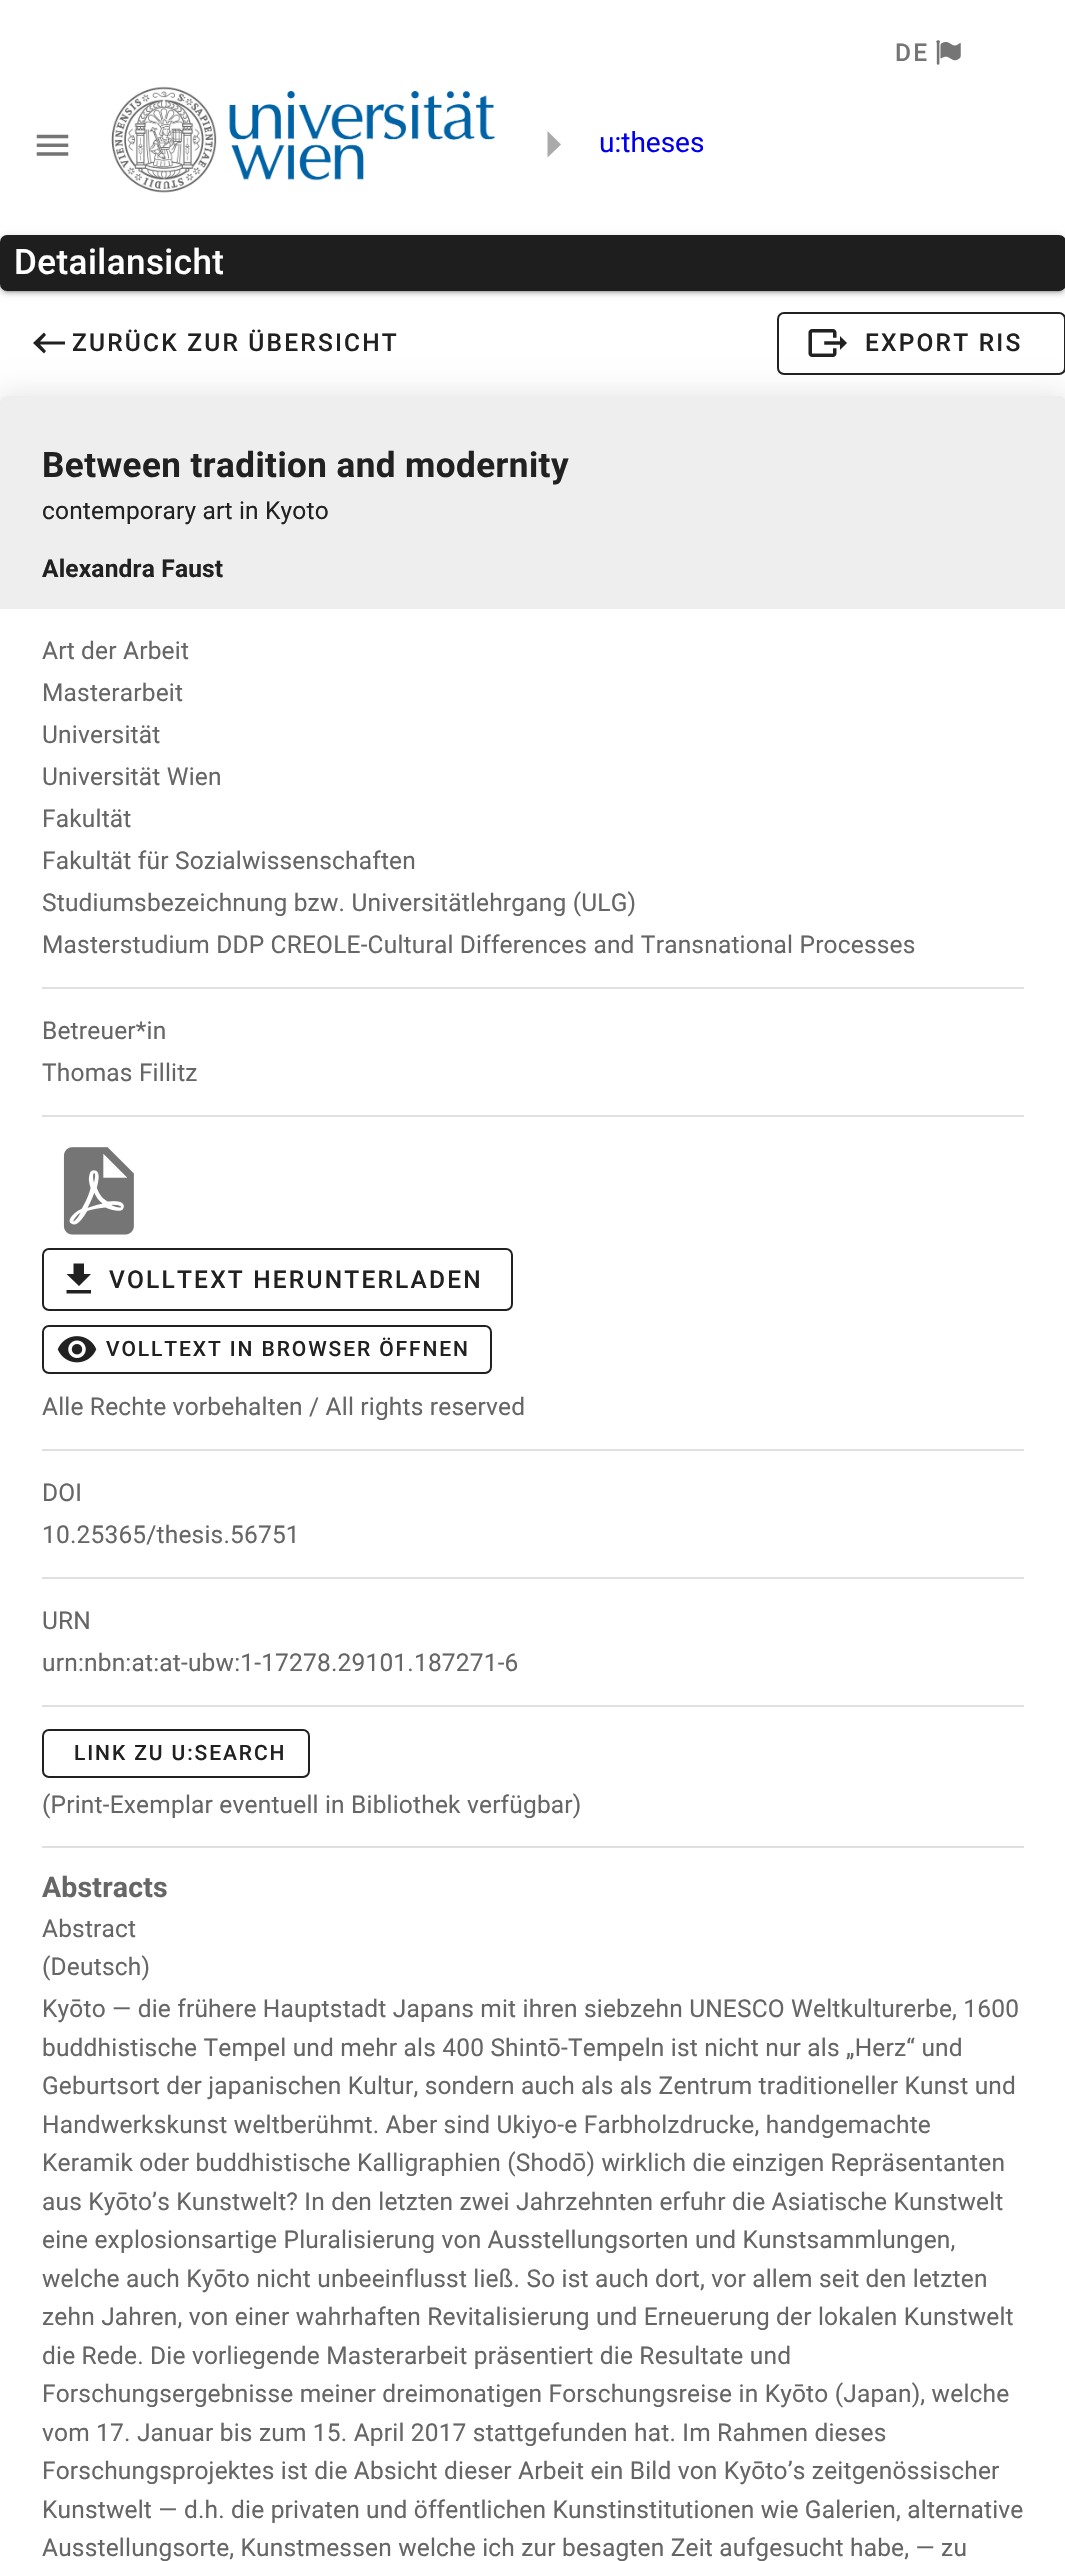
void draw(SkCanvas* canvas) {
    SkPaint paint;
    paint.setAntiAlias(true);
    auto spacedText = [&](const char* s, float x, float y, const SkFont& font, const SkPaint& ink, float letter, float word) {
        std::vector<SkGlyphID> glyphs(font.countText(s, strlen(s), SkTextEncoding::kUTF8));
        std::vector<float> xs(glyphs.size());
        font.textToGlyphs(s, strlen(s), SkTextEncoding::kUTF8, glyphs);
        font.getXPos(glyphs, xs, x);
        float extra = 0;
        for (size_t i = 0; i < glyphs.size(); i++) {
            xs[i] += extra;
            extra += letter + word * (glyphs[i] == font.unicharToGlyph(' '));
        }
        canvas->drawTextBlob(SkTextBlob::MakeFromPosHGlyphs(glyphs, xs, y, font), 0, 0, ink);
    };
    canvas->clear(0xFFFFFFFF);
    SkFont font1(fontMgr->matchFamilyStyle("Roboto", SkFontStyle(500, SkFontStyle::kNormal_Width, SkFontStyle::kUpright_Slant)), 24.5f);
    font1.setSubpixel(true);
    paint.setColor(0xFF757575);
    spacedText("DE", 895, 61, font1, paint, 2.2f, 0);
    canvas->drawImageRect(SkImages::DeferredFromEncodedData(SkData::MakeFromFileName("img1.png")), SkRect::MakeXYWH(936, 40, 25, 25), SkSamplingOptions());
    canvas->drawImageRect(SkImages::DeferredFromEncodedData(SkData::MakeFromFileName("img2.png")), SkRect::MakeXYWH(36, 134, 33, 22), SkSamplingOptions());
    canvas->drawImageRect(SkImages::DeferredFromEncodedData(SkData::MakeFromFileName("img3.png")), SkRect::MakeXYWH(111, 86, 385, 107), SkSamplingOptions());
    paint.setColor(0xFFAAAAAA);
    canvas->drawPath(SkPathBuilder().moveTo(547.5f, 157.5f).lineTo(561, 144.5f).lineTo(547.5f, 131).close().detach(), paint);
    SkFont font2(fontMgr->matchFamilyStyle("Roboto", SkFontStyle::Normal()), 28);
    font2.setSubpixel(true);
    paint.setColor(0xFF0000EE);
    canvas->drawString("u:theses", 599, 152, font2, paint);
    paint.setColor(0x1F000000);
    paint.setMaskFilter(SkMaskFilter::MakeBlur(kNormal_SkBlurStyle, 4.5f));
    canvas->drawRoundRect(SkRect::MakeXYWH(0, 236, 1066, 56), 7, 7, paint);
    paint.setMaskFilter(nullptr);
    paint.setColor(0x24000000);
    paint.setMaskFilter(SkMaskFilter::MakeBlur(kNormal_SkBlurStyle, 2));
    canvas->drawRoundRect(SkRect::MakeXYWH(0, 238, 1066, 56), 7, 7, paint);
    paint.setMaskFilter(nullptr);
    paint.setColor(0x33000000);
    paint.setMaskFilter(SkMaskFilter::MakeBlur(kNormal_SkBlurStyle, 1));
    canvas->drawRoundRect(SkRect::MakeXYWH(4, 243, 1058, 49), 4, 4, paint);
    paint.setMaskFilter(nullptr);
    paint.setColor(0xFF1E1E1E);
    canvas->drawRoundRect(SkRect::MakeXYWH(0, 235, 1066, 56), 7, 7, paint);
    SkFont font3(fontMgr->matchFamilyStyle("Roboto", SkFontStyle(500, SkFontStyle::kNormal_Width, SkFontStyle::kUpright_Slant)), 35);
    font3.setSubpixel(true);
    paint.setColor(0xFFFFFFFF);
    spacedText("Detailansicht", 14, 274, font3, paint, 0.45f, 0);
    paint.setColor(0xFF212121);
    canvas->drawPath(SkPathBuilder().moveTo(65, 341.5f).lineTo(40, 341.5f).lineTo(46, 335).lineTo(44, 332.5f).lineTo(33, 343).lineTo(44, 353.5f).lineTo(46, 351).lineTo(40, 344.5f).lineTo(65, 344.5f).close().detach(), paint);
    spacedText("ZURÜCK ZUR ÜBERSICHT", 72, 351, font1, paint, 2.2f, 0);
    paint.setStyle(SkPaint::kStroke_Style);
    paint.setStrokeWidth(2);
    canvas->drawRoundRect(SkRect::MakeXYWH(778, 313, 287, 61), 6, 6, paint);
    canvas->drawImageRect(SkImages::DeferredFromEncodedData(SkData::MakeFromFileName("img4.png")), SkRect::MakeXYWH(808, 329, 39, 28), SkSamplingOptions());
    paint.setStyle(SkPaint::kFill_Style);
    spacedText("EXPORT RIS", 865, 351, font1, paint, 2.2f, 0);
    paint.setColor(0x1F000000);
    paint.setMaskFilter(SkMaskFilter::MakeBlur(kNormal_SkBlurStyle, 16));
    canvas->drawRoundRect(SkRect::MakeXYWH(-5, 397, 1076, 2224), 12, 12, paint);
    paint.setMaskFilter(nullptr);
    paint.setColor(0xFFFFFFFF);
    canvas->drawRoundRect(SkRect::MakeXYWH(0, 396, 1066, 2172), 7, 7, paint);
    paint.setColor(0xFFEEEEEE);
    canvas->drawPath(SkPathBuilder().moveTo(7, 396).lineTo(1059, 396).cubicTo(1063, 396, 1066, 399, 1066, 403).lineTo(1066, 609).lineTo(0, 609).lineTo(0, 403).cubicTo(0, 399, 3, 396, 7, 396).close().detach(), paint);
    SkFont font4(fontMgr->matchFamilyStyle("Roboto", SkFontStyle::Bold()), 35);
    font4.setSubpixel(true);
    paint.setColor(0xFF212121);
    spacedText("Between tradition and modernity", 42, 477, font4, paint, 0.45f, 0);
    SkFont font5(fontMgr->matchFamilyStyle("Roboto", SkFontStyle::Normal()), 24.5f);
    font5.setSubpixel(true);
    spacedText("contemporary art in Kyoto", 42, 519, font5, paint, 0.18f, 0);
    SkFont font6(fontMgr->matchFamilyStyle("Roboto", SkFontStyle::Bold()), 24.5f);
    font6.setSubpixel(true);
    spacedText("Alexandra Faust", 42, 577, font6, paint, 0.18f, 0);
    paint.setColor(0xFF666666);
    spacedText("Art der Arbeit", 42, 659, font5, paint, 0.18f, 0);
    spacedText("Masterarbeit", 42, 701, font5, paint, 0.18f, 0);
    spacedText("Universität", 42, 743, font5, paint, 0.18f, 0);
    spacedText("Universität Wien", 42, 785, font5, paint, 0.18f, 0);
    spacedText("Fakultät", 42, 827, font5, paint, 0.18f, 0);
    spacedText("Fakultät für Sozialwissenschaften", 42, 869, font5, paint, 0.18f, 0);
    spacedText("Studiumsbezeichnung bzw. Universitätlehrgang (ULG)", 42, 911, font5, paint, 0.18f, 0);
    spacedText("Masterstudium DDP CREOLE-Cultural Differences and Transnational Processes", 42, 953, font5, paint, 0.18f, 0);
    paint.setColor(0xFFE0E0E0);
    canvas->drawRect(SkRect::MakeXYWH(42, 987, 982, 2), paint);
    paint.setColor(0xFF666666);
    spacedText("Betreuer*in", 42, 1039, font5, paint, 0.18f, 0);
    spacedText("Thomas Fillitz", 42, 1081, font5, paint, 0.18f, 0);
    paint.setColor(0xFFE0E0E0);
    canvas->drawRect(SkRect::MakeXYWH(42, 1115, 982, 2), paint);
    canvas->drawImageRect(SkImages::DeferredFromEncodedData(SkData::MakeFromFileName("img5.png")), SkRect::MakeXYWH(63, 1147, 71, 88), SkSamplingOptions());
    paint.setStyle(SkPaint::kStroke_Style);
    paint.setColor(0xFF212121);
    canvas->drawRoundRect(SkRect::MakeXYWH(43, 1249, 469, 61), 6, 6, paint);
    paint.setStyle(SkPaint::kFill_Style);
    canvas->drawPath(SkPathBuilder().moveTo(66.5f, 1293.5f).lineTo(91, 1293.5f).lineTo(91, 1290).lineTo(66.5f, 1290).close().moveTo(91, 1274).lineTo(84, 1274).lineTo(84, 1263.5f).lineTo(73.5f, 1263.5f).lineTo(73.5f, 1274).lineTo(66.5f, 1274).lineTo(79, 1286).close().detach(), paint);
    spacedText("VOLLTEXT HERUNTERLADEN", 109, 1288, font1, paint, 2.2f, 0);
    paint.setStyle(SkPaint::kStroke_Style);
    canvas->drawRoundRect(SkRect::MakeXYWH(43, 1326, 448, 47), 6, 6, paint);
    canvas->drawImageRect(SkImages::DeferredFromEncodedData(SkData::MakeFromFileName("img6.png")), SkRect::MakeXYWH(57, 1336, 40, 27), SkSamplingOptions());
    SkFont font7(fontMgr->matchFamilyStyle("Roboto", SkFontStyle(500, SkFontStyle::kNormal_Width, SkFontStyle::kUpright_Slant)), 21);
    font7.setSubpixel(true);
    paint.setStyle(SkPaint::kFill_Style);
    spacedText("VOLLTEXT IN BROWSER ÖFFNEN", 106, 1356, font7, paint, 1.9f, 0);
    paint.setColor(0xFF666666);
    spacedText("Alle Rechte vorbehalten / All rights reserved", 42, 1415, font5, paint, 0.18f, 0);
    paint.setColor(0xFFE0E0E0);
    canvas->drawRect(SkRect::MakeXYWH(42, 1449, 982, 2), paint);
    paint.setColor(0xFF666666);
    spacedText("DOI", 42, 1501, font5, paint, 0.18f, 0);
    spacedText("10.25365/thesis.56751", 42, 1543, font5, paint, 0.18f, 0);
    paint.setColor(0xFFE0E0E0);
    canvas->drawRect(SkRect::MakeXYWH(42, 1577, 982, 2), paint);
    paint.setColor(0xFF666666);
    spacedText("URN", 42, 1629, font5, paint, 0.18f, 0);
    spacedText("urn:nbn:at:at-ubw:1-17278.29101.187271-6", 42, 1671, font5, paint, 0.18f, 0);
    paint.setColor(0xFFE0E0E0);
    canvas->drawRect(SkRect::MakeXYWH(42, 1705, 982, 2), paint);
    paint.setStyle(SkPaint::kStroke_Style);
    paint.setColor(0xFF212121);
    canvas->drawRoundRect(SkRect::MakeXYWH(43, 1730, 266, 47), 6, 6, paint);
    paint.setStyle(SkPaint::kFill_Style);
    spacedText("LINK ZU U:SEARCH", 74, 1760, font7, paint, 1.9f, 0);
    paint.setColor(0xFF666666);
    spacedText("(Print-Exemplar eventuell in Bibliothek verfügbar)", 42, 1813, font5, paint, 0.18f, 0);
    paint.setColor(0xFFE0E0E0);
    canvas->drawRect(SkRect::MakeXYWH(42, 1846, 982, 2), paint);
    SkFont font8(fontMgr->matchFamilyStyle("Roboto", SkFontStyle::Bold()), 28.5f);
    font8.setSubpixel(true);
    paint.setColor(0xFF666666);
    spacedText("Abstracts", 42, 1897, font8, paint, 0.18f, 0);
    spacedText("Abstract", 42, 1937, font5, paint, 0.18f, 0);
    spacedText("(Deutsch)", 42, 1975, font5, paint, 0.18f, 0);
    spacedText("Kyōto — die frühere Hauptstadt Japans mit ihren siebzehn UNESCO Weltkulturerbe, 1600", 42, 2017, font5, paint, 0.18f, 0);
    spacedText("buddhistische Tempel und mehr als 400 Shintō-Tempeln ist nicht nur als „Herz“ und", 42, 2056, font5, paint, 0.18f, 0);
    spacedText("Geburtsort der japanischen Kultur, sondern auch als als Zentrum traditioneller Kunst und", 42, 2094, font5, paint, 0.18f, 0);
    spacedText("Handwerkskunst weltberühmt. Aber sind Ukiyo-e Farbholzdrucke, handgemachte", 42, 2133, font5, paint, 0.18f, 0);
    spacedText("Keramik oder buddhistische Kalligraphien (Shodō) wirklich die einzigen Repräsentanten", 42, 2171, font5, paint, 0.18f, 0);
    spacedText("aus Kyōto’s Kunstwelt? In den letzten zwei Jahrzehnten erfuhr die Asiatische Kunstwelt", 42, 2210, font5, paint, 0.18f, 0);
    spacedText("eine explosionsartige Pluralisierung von Ausstellungsorten und Kunstsammlungen,", 42, 2248, font5, paint, 0.18f, 0);
    spacedText("welche auch Kyōto nicht unbeeinflusst ließ. So ist auch dort, vor allem seit den letzten", 42, 2287, font5, paint, 0.18f, 0);
    spacedText("zehn Jahren, von einer wahrhaften Revitalisierung und Erneuerung der lokalen Kunstwelt", 42, 2325, font5, paint, 0.18f, 0);
    spacedText("die Rede. Die vorliegende Masterarbeit präsentiert die Resultate und", 42, 2364, font5, paint, 0.18f, 0);
    spacedText("Forschungsergebnisse meiner dreimonatigen Forschungsreise in Kyōto (Japan), welche", 42, 2402, font5, paint, 0.18f, 0);
    spacedText("vom 17. Januar bis zum 15. April 2017 stattgefunden hat. Im Rahmen dieses", 42, 2441, font5, paint, 0.18f, 0);
    spacedText("Forschungsprojektes ist die Absicht dieser Arbeit ein Bild von Kyōto’s zeitgenössischer", 42, 2479, font5, paint, 0.18f, 0);
    spacedText("Kunstwelt — d.h. die privaten und öffentlichen Kunstinstitutionen wie Galerien, alternative", 42, 2518, font5, paint, 0.18f, 0);
    spacedText("Ausstellungsorte, Kunstmessen welche ich zur besagten Zeit aufgesucht habe, — zu", 42, 2556, font5, paint, 0.18f, 0);
}
